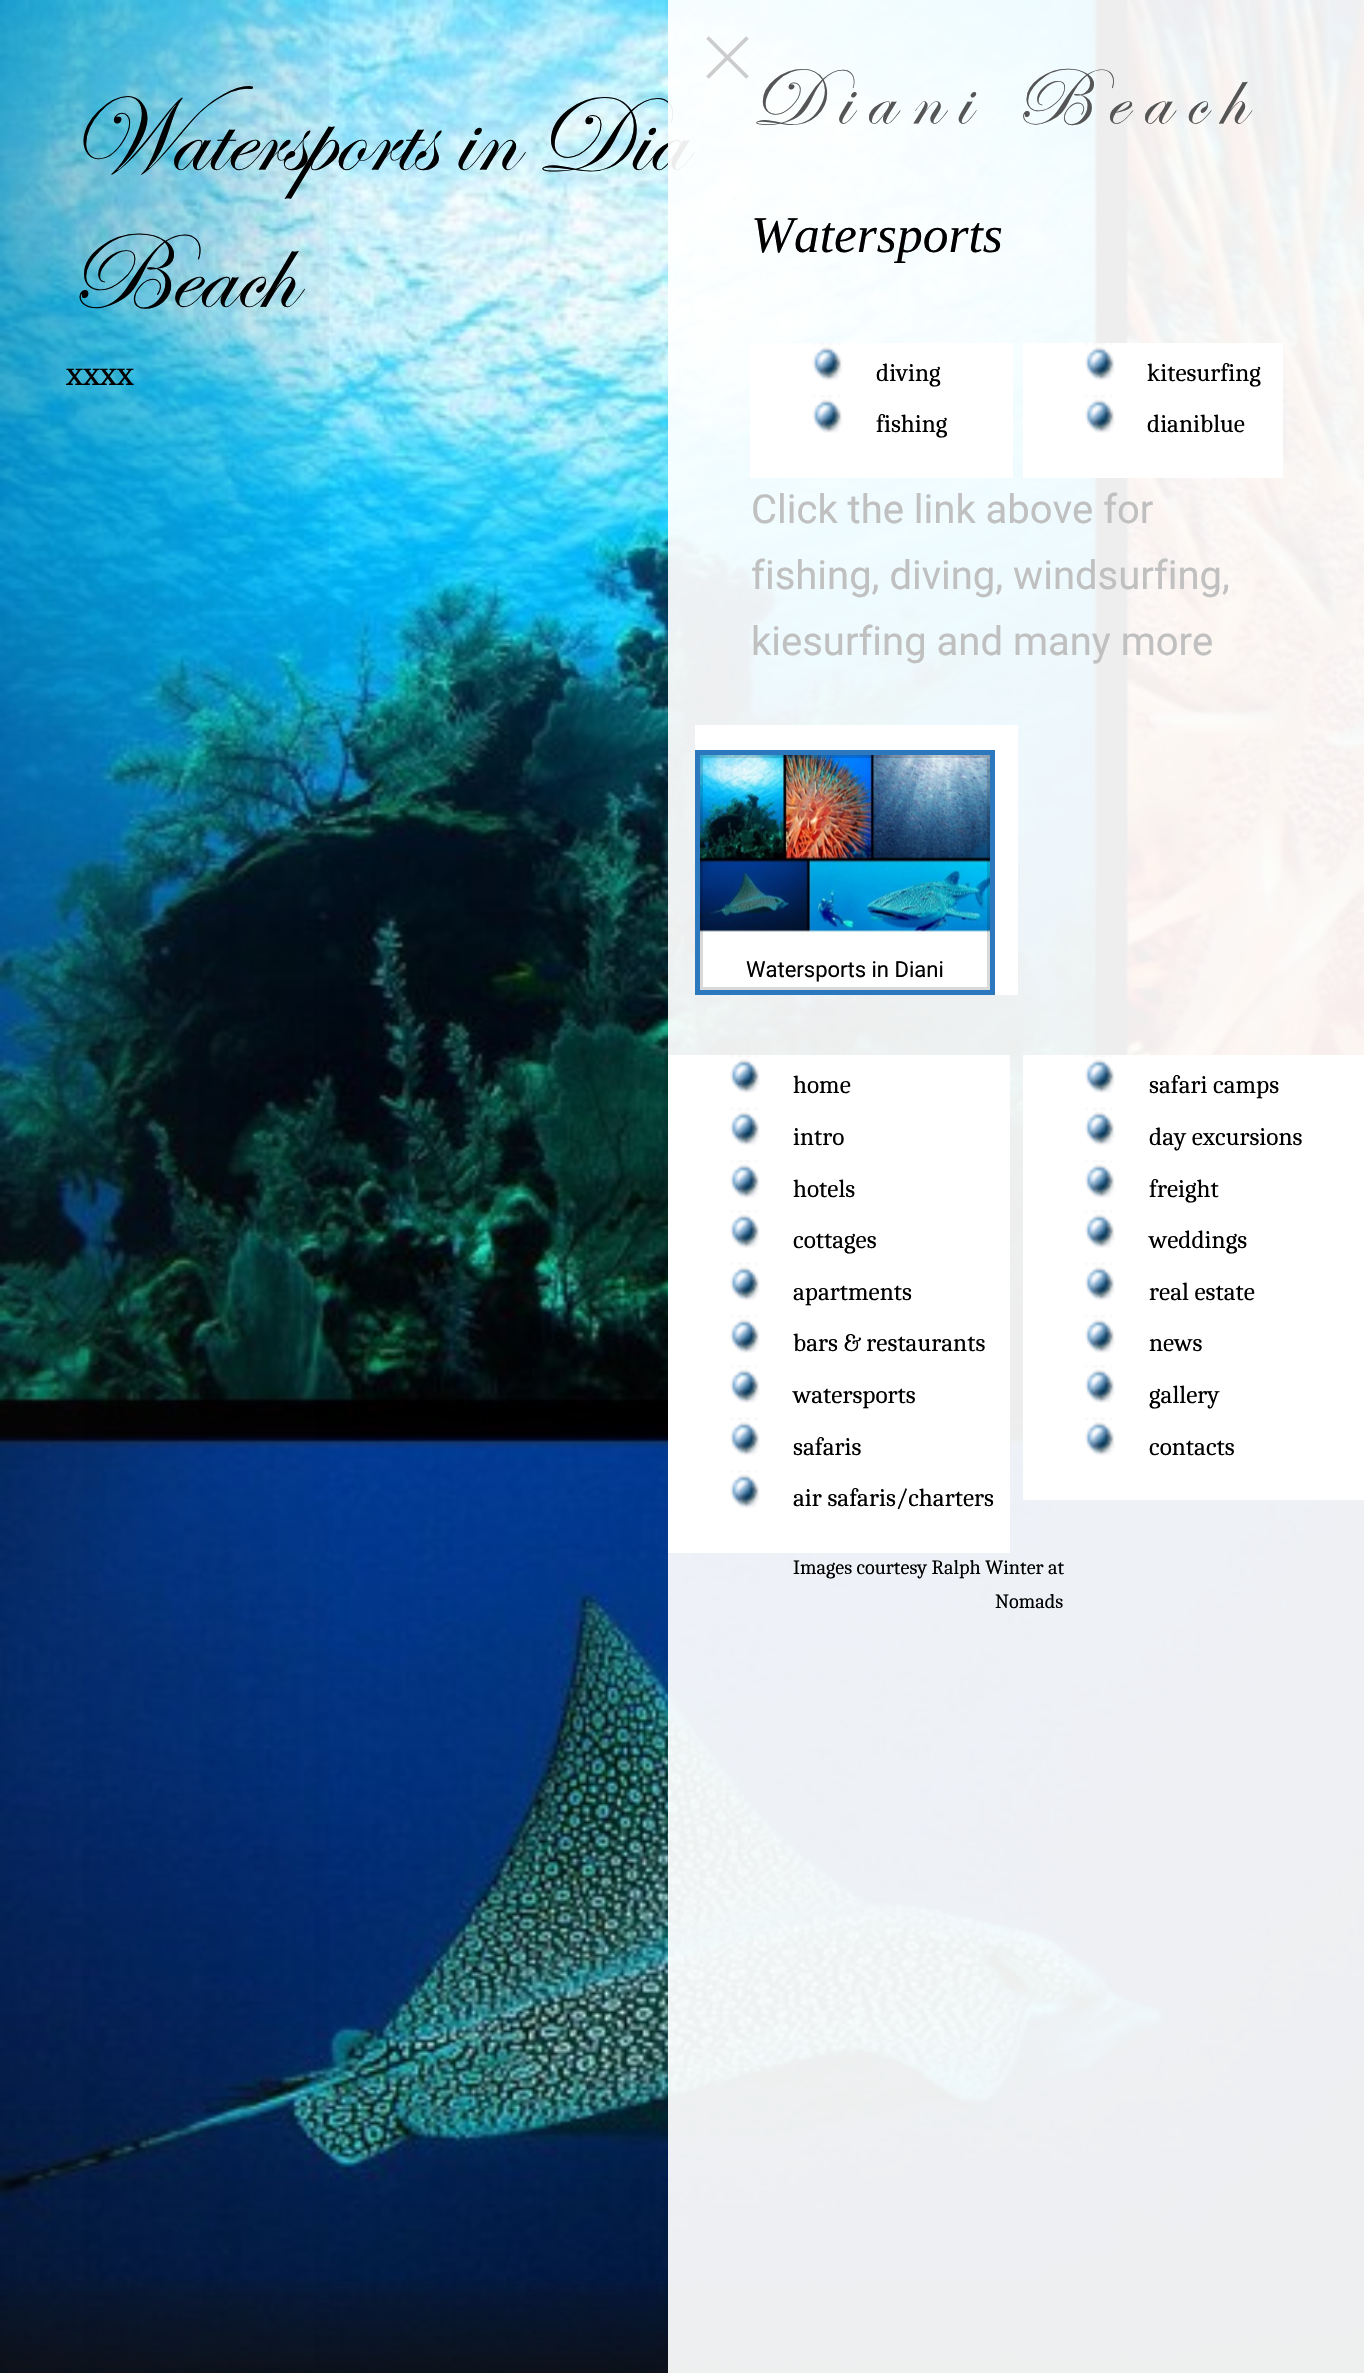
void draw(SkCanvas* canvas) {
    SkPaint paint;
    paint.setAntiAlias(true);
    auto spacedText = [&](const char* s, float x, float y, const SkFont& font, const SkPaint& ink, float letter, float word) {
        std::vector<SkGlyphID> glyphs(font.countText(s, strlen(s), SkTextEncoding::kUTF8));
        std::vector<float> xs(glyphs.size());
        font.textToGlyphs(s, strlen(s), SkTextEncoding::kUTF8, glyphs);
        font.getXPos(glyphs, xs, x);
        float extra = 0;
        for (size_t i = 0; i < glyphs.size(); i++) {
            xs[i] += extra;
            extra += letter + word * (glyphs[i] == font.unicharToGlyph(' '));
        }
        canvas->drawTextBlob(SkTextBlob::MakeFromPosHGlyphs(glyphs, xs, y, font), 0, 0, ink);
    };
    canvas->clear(0xFFFFFFFF);
    canvas->drawImageRect(SkImages::DeferredFromEncodedData(SkData::MakeFromFileName("img1.png")), SkRect::MakeXYWH(0, 0, 1364, 2373), SkSamplingOptions());
    {
        const SkColor colors[] = {0x33101010, 0x00101010, 0x00101010};
        const float stops[] = {0, 0.27f, 1};
        const SkPoint ends[] = {{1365, 1188}, {0, 1188}};
        paint.setShader(SkGradientShader::MakeLinear(ends, colors, stops, 3, SkTileMode::kClamp));
        paint.setAlpha(255);
    }
    canvas->drawRect(SkRect::MakeXYWH(1036, 0, 328, 2351), paint);
    {
        const SkColor colors[] = {0x33101010, 0x00101010, 0x00101010};
        const float stops[] = {0, 0.27f, 1};
        const SkPoint ends[] = {{0, 1188}, {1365, 1188}};
        paint.setShader(SkGradientShader::MakeLinear(ends, colors, stops, 3, SkTileMode::kClamp));
        paint.setAlpha(255);
    }
    canvas->drawRect(SkRect::MakeXYWH(0, 0, 329, 2368), paint);
    SkFont font1(fontMgr->matchFamilyStyle("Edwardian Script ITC", SkFontStyle::Normal()), 110);
    font1.setSubpixel(true);
    paint.setShader(nullptr);
    paint.setColor(0xFF000000);
    canvas->drawString("Watersports in Dia", 67, 169, font1, paint);
    canvas->drawString("Beach", 67, 306, font1, paint);
    SkFont font2(fontMgr->matchFamilyStyle("Caladea", SkFontStyle::Normal()), 35);
    font2.setSubpixel(true);
    canvas->drawString("xxxx", 66, 385, font2, paint);
    paint.setColor(0xEDFFFFFF);
    canvas->drawRect(SkRect::MakeXYWH(668, 0, 696, 2373), paint);
    paint.setStyle(SkPaint::kStroke_Style);
    paint.setStrokeWidth(3.8f);
    paint.setColor(0xFFCCCCCC);
    canvas->drawPath(SkPathBuilder().moveTo(707.5f, 37.5f).lineTo(747.5f, 77.5f).moveTo(707.5f, 77.5f).lineTo(747.5f, 37.5f).detach(), paint);
    SkFont font3(fontMgr->matchFamilyStyle("Edwardian Script ITC", SkFontStyle::Normal()), 82.5f);
    font3.setSubpixel(true);
    paint.setStyle(SkPaint::kFill_Style);
    paint.setColor(0xFF555555);
    spacedText("Diani Beach", 751, 123, font3, paint, 15, 0);
    SkFont font4(fontMgr->matchFamilyStyle("Liberation Serif", SkFontStyle::Italic()), 51.5f);
    font4.setSubpixel(true);
    paint.setColor(0xFF000000);
    canvas->drawString("Watersports", 751, 252, font4, paint);
    paint.setColor(0xFFFFFFFF);
    canvas->drawRect(SkRect::MakeXYWH(750, 343, 263, 135), paint);
    canvas->drawImageRect(SkImages::DeferredFromEncodedData(SkData::MakeFromFileName("img2.png")), SkRect::MakeXYWH(812, 343, 31, 38), SkSamplingOptions());
    SkFont font5(fontMgr->matchFamilyStyle("Caladea", SkFontStyle::Normal()), 25.25f);
    font5.setSubpixel(true);
    paint.setColor(0xFF000000);
    canvas->drawString("diving", 876, 381, font5, paint);
    canvas->drawImageRect(SkImages::DeferredFromEncodedData(SkData::MakeFromFileName("img3.png")), SkRect::MakeXYWH(812, 395, 31, 38), SkSamplingOptions());
    canvas->drawString("fishing", 876, 432, font5, paint);
    paint.setColor(0xFFFFFFFF);
    canvas->drawRect(SkRect::MakeXYWH(1023, 343, 260, 135), paint);
    canvas->drawImageRect(SkImages::DeferredFromEncodedData(SkData::MakeFromFileName("img4.png")), SkRect::MakeXYWH(1085, 343, 30, 38), SkSamplingOptions());
    paint.setColor(0xFF000000);
    canvas->drawString("kitesurfing", 1147, 381, font5, paint);
    canvas->drawImageRect(SkImages::DeferredFromEncodedData(SkData::MakeFromFileName("img5.png")), SkRect::MakeXYWH(1085, 395, 30, 38), SkSamplingOptions());
    canvas->drawString("dianiblue", 1147, 432, font5, paint);
    SkFont font6(fontMgr->matchFamilyStyle("Roboto", SkFontStyle::Normal()), 40);
    font6.setSubpixel(true);
    paint.setColor(0xFFC0C0C0);
    canvas->drawString("Click the link above for", 751, 523, font6, paint);
    canvas->drawString("fishing, diving, windsurfing,", 751, 589, font6, paint);
    canvas->drawString("kiesurfing and many more", 751, 655, font6, paint);
    paint.setColor(0xFFFFFFFF);
    canvas->drawRect(SkRect::MakeXYWH(695, 725, 323, 270), paint);
    canvas->drawImageRect(SkImages::DeferredFromEncodedData(SkData::MakeFromFileName("img6.png")), SkRect::MakeXYWH(695, 749, 300, 186), SkSamplingOptions());
    paint.setStyle(SkPaint::kStroke_Style);
    paint.setStrokeWidth(8);
    paint.setColor(0x26000000);
    canvas->drawRect(SkRect::MakeXYWH(699, 754, 292, 237), paint);
    paint.setStrokeWidth(5);
    paint.setColor(0xFF2B78BE);
    canvas->drawRect(SkRect::MakeXYWH(697.5f, 752.5f, 295, 240), paint);
    SkFont font7(fontMgr->matchFamilyStyle("Roboto", SkFontStyle::Normal()), 22);
    font7.setSubpixel(true);
    paint.setStyle(SkPaint::kFill_Style);
    paint.setColor(0xFF000000);
    canvas->drawString("Watersports in Diani", 746, 977, font7, paint);
    paint.setColor(0xFFFFFFFF);
    canvas->drawRect(SkRect::MakeXYWH(668, 1055, 342, 498), paint);
    canvas->drawImageRect(SkImages::DeferredFromEncodedData(SkData::MakeFromFileName("img7.png")), SkRect::MakeXYWH(730, 1055, 30, 38), SkSamplingOptions());
    paint.setColor(0xFF000000);
    canvas->drawString("home", 793, 1093, font5, paint);
    canvas->drawImageRect(SkImages::DeferredFromEncodedData(SkData::MakeFromFileName("img8.png")), SkRect::MakeXYWH(730, 1107, 30, 39), SkSamplingOptions());
    canvas->drawString("intro", 793, 1145, font5, paint);
    canvas->drawImageRect(SkImages::DeferredFromEncodedData(SkData::MakeFromFileName("img7.png")), SkRect::MakeXYWH(730, 1160, 30, 38), SkSamplingOptions());
    canvas->drawString("hotels", 793, 1197, font5, paint);
    canvas->drawImageRect(SkImages::DeferredFromEncodedData(SkData::MakeFromFileName("img5.png")), SkRect::MakeXYWH(730, 1210, 30, 38), SkSamplingOptions());
    canvas->drawString("cottages", 793, 1248, font5, paint);
    canvas->drawImageRect(SkImages::DeferredFromEncodedData(SkData::MakeFromFileName("img9.png")), SkRect::MakeXYWH(730, 1262, 30, 39), SkSamplingOptions());
    canvas->drawString("apartments", 793, 1300, font5, paint);
    canvas->drawImageRect(SkImages::DeferredFromEncodedData(SkData::MakeFromFileName("img5.png")), SkRect::MakeXYWH(730, 1315, 30, 38), SkSamplingOptions());
    canvas->drawString("bars & restaurants", 793, 1351, font5, paint);
    canvas->drawImageRect(SkImages::DeferredFromEncodedData(SkData::MakeFromFileName("img10.png")), SkRect::MakeXYWH(730, 1365, 30, 38), SkSamplingOptions());
    canvas->drawString("watersports", 793, 1403, font5, paint);
    canvas->drawImageRect(SkImages::DeferredFromEncodedData(SkData::MakeFromFileName("img11.png")), SkRect::MakeXYWH(730, 1417, 30, 39), SkSamplingOptions());
    canvas->drawString("safaris", 793, 1455, font5, paint);
    canvas->drawImageRect(SkImages::DeferredFromEncodedData(SkData::MakeFromFileName("img7.png")), SkRect::MakeXYWH(730, 1470, 30, 38), SkSamplingOptions());
    canvas->drawString("air safaris/charters", 793, 1506, font5, paint);
    paint.setColor(0xFFFFFFFF);
    canvas->drawRect(SkRect::MakeXYWH(1023, 1055, 341, 445), paint);
    canvas->drawImageRect(SkImages::DeferredFromEncodedData(SkData::MakeFromFileName("img5.png")), SkRect::MakeXYWH(1085, 1055, 30, 38), SkSamplingOptions());
    paint.setColor(0xFF000000);
    canvas->drawString("safari camps", 1149, 1093, font5, paint);
    canvas->drawImageRect(SkImages::DeferredFromEncodedData(SkData::MakeFromFileName("img8.png")), SkRect::MakeXYWH(1085, 1107, 30, 39), SkSamplingOptions());
    canvas->drawString("day excursions", 1149, 1145, font5, paint);
    canvas->drawImageRect(SkImages::DeferredFromEncodedData(SkData::MakeFromFileName("img5.png")), SkRect::MakeXYWH(1085, 1160, 30, 38), SkSamplingOptions());
    canvas->drawString("freight", 1149, 1197, font5, paint);
    canvas->drawImageRect(SkImages::DeferredFromEncodedData(SkData::MakeFromFileName("img5.png")), SkRect::MakeXYWH(1085, 1210, 30, 38), SkSamplingOptions());
    canvas->drawString("weddings", 1149, 1248, font5, paint);
    canvas->drawImageRect(SkImages::DeferredFromEncodedData(SkData::MakeFromFileName("img8.png")), SkRect::MakeXYWH(1085, 1262, 30, 39), SkSamplingOptions());
    canvas->drawString("real estate", 1149, 1300, font5, paint);
    canvas->drawImageRect(SkImages::DeferredFromEncodedData(SkData::MakeFromFileName("img5.png")), SkRect::MakeXYWH(1085, 1315, 30, 38), SkSamplingOptions());
    canvas->drawString("news", 1149, 1351, font5, paint);
    canvas->drawImageRect(SkImages::DeferredFromEncodedData(SkData::MakeFromFileName("img12.png")), SkRect::MakeXYWH(1085, 1365, 30, 38), SkSamplingOptions());
    canvas->drawString("gallery", 1149, 1403, font5, paint);
    canvas->drawImageRect(SkImages::DeferredFromEncodedData(SkData::MakeFromFileName("img11.png")), SkRect::MakeXYWH(1085, 1417, 30, 39), SkSamplingOptions());
    canvas->drawString("contacts", 1149, 1455, font5, paint);
    SkFont font8(fontMgr->matchFamilyStyle("Caladea", SkFontStyle::Normal()), 20.25f);
    font8.setSubpixel(true);
    canvas->drawString("Images courtesy Ralph Winter at", 793, 1574, font8, paint);
    canvas->drawString("Nomads", 995, 1608, font8, paint);
}
